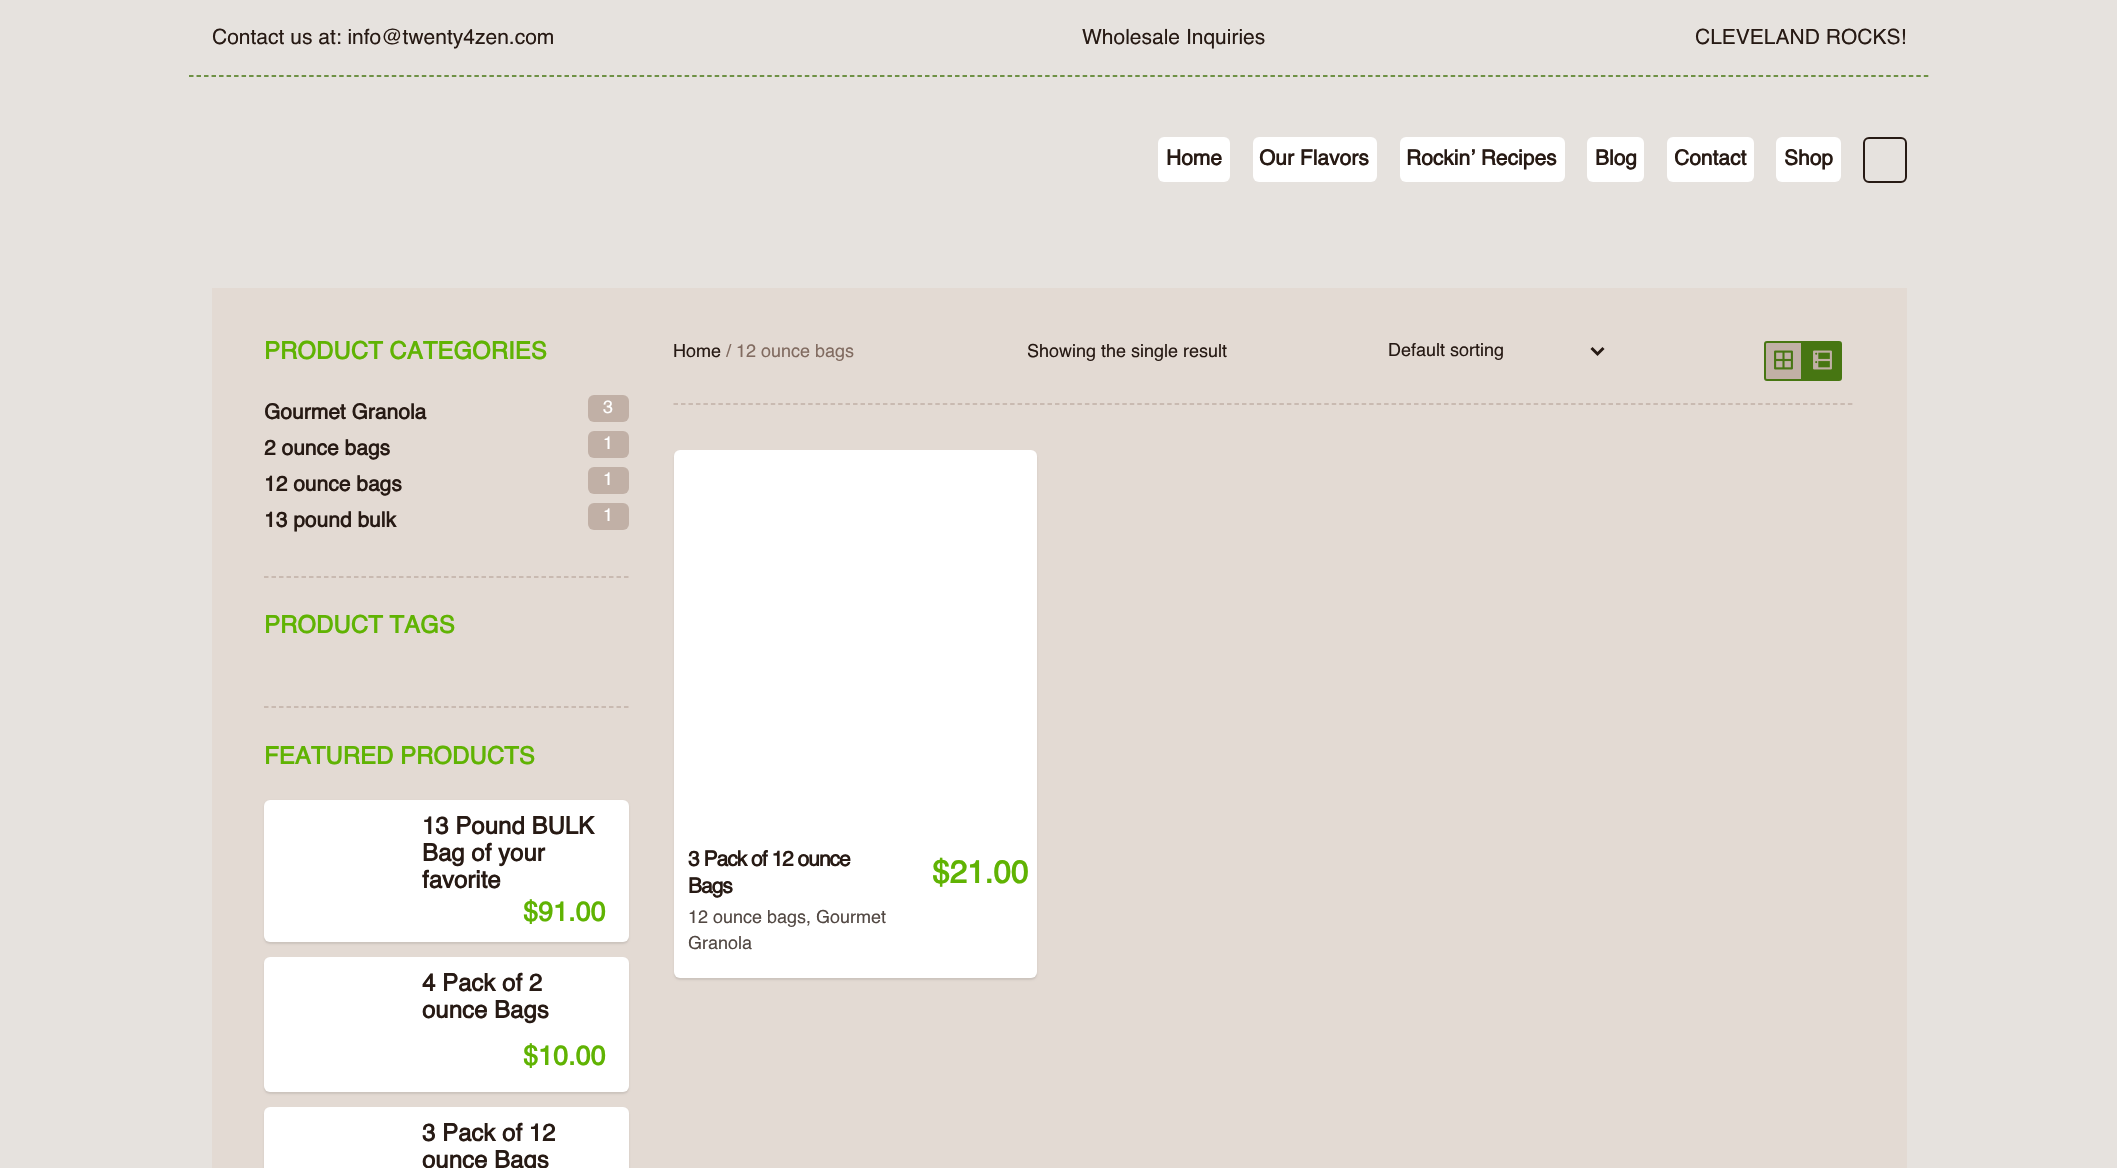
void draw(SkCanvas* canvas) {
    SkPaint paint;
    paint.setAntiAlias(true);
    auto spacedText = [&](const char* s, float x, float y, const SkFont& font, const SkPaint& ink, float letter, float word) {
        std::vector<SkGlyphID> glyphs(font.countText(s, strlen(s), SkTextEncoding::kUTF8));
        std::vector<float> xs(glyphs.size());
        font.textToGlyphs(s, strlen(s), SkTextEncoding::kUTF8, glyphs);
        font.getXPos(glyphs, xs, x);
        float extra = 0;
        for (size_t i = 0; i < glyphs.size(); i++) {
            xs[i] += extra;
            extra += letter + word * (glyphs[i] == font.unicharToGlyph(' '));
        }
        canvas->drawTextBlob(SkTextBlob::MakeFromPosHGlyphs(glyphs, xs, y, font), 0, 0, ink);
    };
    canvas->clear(0xFFE6E2DE);
    paint.setStyle(SkPaint::kStroke_Style);
    paint.setStrokeWidth(1.5f);
    paint.setColor(0xFF477612);
    paint.setPathEffect(SkDashPathEffect::Make({{4.5f, 3.01f}}, 0));
    canvas->drawPath(SkPathBuilder().moveTo(189, 76).lineTo(1929, 76).detach(), paint);
    paint.setPathEffect(nullptr);
    SkFont font1(fontMgr->matchFamilyStyle("Helvetica", SkFontStyle::Normal()), 21);
    font1.setSubpixel(true);
    paint.setStyle(SkPaint::kFill_Style);
    paint.setColor(0xFF271A14);
    canvas->drawString("Contact us at: info@twenty4zen.com", 212, 44, font1, paint);
    canvas->drawString("Wholesale Inquiries", 1082, 44, font1, paint);
    canvas->drawString("CLEVELAND ROCKS!", 1695, 44, font1, paint);
    paint.setColor(0xFFFFFFFF);
    canvas->drawRoundRect(SkRect::MakeXYWH(1158, 137, 72, 45), 6, 6, paint);
    SkFont font2(fontMgr->matchFamilyStyle("Helvetica", SkFontStyle::Bold()), 21);
    font2.setSubpixel(true);
    paint.setColor(0xFF271A14);
    canvas->drawString("Home", 1166, 165, font2, paint);
    paint.setColor(0xFFFFFFFF);
    canvas->drawRoundRect(SkRect::MakeXYWH(1253, 137, 124, 45), 6, 6, paint);
    paint.setColor(0xFF271A14);
    canvas->drawString("Our Flavors", 1259, 165, font2, paint);
    paint.setColor(0xFFFFFFFF);
    canvas->drawRoundRect(SkRect::MakeXYWH(1400, 137, 165, 45), 6, 6, paint);
    paint.setColor(0xFF271A14);
    canvas->drawString("Rockin’ Recipes", 1406, 165, font2, paint);
    paint.setColor(0xFFFFFFFF);
    canvas->drawRoundRect(SkRect::MakeXYWH(1587, 137, 57, 45), 6, 6, paint);
    paint.setColor(0xFF271A14);
    canvas->drawString("Blog", 1595, 165, font2, paint);
    paint.setColor(0xFFFFFFFF);
    canvas->drawRoundRect(SkRect::MakeXYWH(1667, 137, 87, 45), 6, 6, paint);
    paint.setColor(0xFF271A14);
    canvas->drawString("Contact", 1674, 165, font2, paint);
    paint.setColor(0xFFFFFFFF);
    canvas->drawRoundRect(SkRect::MakeXYWH(1776, 137, 65, 45), 6, 6, paint);
    paint.setColor(0xFF271A14);
    canvas->drawString("Shop", 1784, 165, font2, paint);
    paint.setStyle(SkPaint::kStroke_Style);
    paint.setStrokeWidth(2);
    canvas->drawRoundRect(SkRect::MakeXYWH(1864, 138, 42, 44), 5, 5, paint);
    paint.setStyle(SkPaint::kFill_Style);
    paint.setColor(0xFFE3DAD3);
    canvas->drawRect(SkRect::MakeXYWH(212, 288, 1695, 880), paint);
    paint.setStyle(SkPaint::kStroke_Style);
    paint.setStrokeWidth(1.5f);
    paint.setColor(0xFFC1B0A6);
    paint.setPathEffect(SkDashPathEffect::Make({{4.5f, 3}}, 0));
    canvas->drawPath(SkPathBuilder().moveTo(264, 577).lineTo(628.5f, 577).detach(), paint);
    paint.setPathEffect(nullptr);
    SkFont font3(fontMgr->matchFamilyStyle("Helvetica", SkFontStyle::Bold()), 24);
    font3.setSubpixel(true);
    paint.setStyle(SkPaint::kFill_Style);
    paint.setColor(0xFF60B303);
    canvas->drawString("PRODUCT CATEGORIES", 264, 359, font3, paint);
    paint.setColor(0xFF271A14);
    canvas->drawString("Gourmet Granola", 264, 419, font2, paint);
    paint.setColor(0xFFC1B0A6);
    canvas->drawRoundRect(SkRect::MakeXYWH(588, 395, 41, 27), 6, 6, paint);
    SkFont font4(fontMgr->matchFamilyStyle("Helvetica", SkFontStyle::Normal()), 18);
    font4.setSubpixel(true);
    paint.setColor(0xFFFFFFFF);
    canvas->drawString("3", 603, 413, font4, paint);
    paint.setColor(0xFF271A14);
    canvas->drawString("2 ounce bags", 264, 455, font2, paint);
    paint.setColor(0xFFC1B0A6);
    canvas->drawRoundRect(SkRect::MakeXYWH(588, 431, 41, 27), 6, 6, paint);
    paint.setColor(0xFFFFFFFF);
    canvas->drawString("1", 603, 449, font4, paint);
    paint.setColor(0xFF271A14);
    canvas->drawString("12 ounce bags", 264, 491, font2, paint);
    paint.setColor(0xFFC1B0A6);
    canvas->drawRoundRect(SkRect::MakeXYWH(588, 467, 41, 27), 6, 6, paint);
    paint.setColor(0xFFFFFFFF);
    canvas->drawString("1", 603, 485, font4, paint);
    paint.setColor(0xFF271A14);
    canvas->drawString("13 pound bulk", 264, 527, font2, paint);
    paint.setColor(0xFFC1B0A6);
    canvas->drawRoundRect(SkRect::MakeXYWH(588, 503, 41, 27), 6, 6, paint);
    paint.setColor(0xFFFFFFFF);
    canvas->drawString("1", 603, 521, font4, paint);
    paint.setStyle(SkPaint::kStroke_Style);
    paint.setColor(0xFFC1B0A6);
    paint.setPathEffect(SkDashPathEffect::Make({{4.5f, 3}}, 0));
    canvas->drawPath(SkPathBuilder().moveTo(264, 707).lineTo(628.5f, 707).detach(), paint);
    paint.setPathEffect(nullptr);
    paint.setStyle(SkPaint::kFill_Style);
    paint.setColor(0xFF60B303);
    canvas->drawString("PRODUCT TAGS", 264, 633, font3, paint);
    canvas->drawString("FEATURED PRODUCTS", 264, 764, font3, paint);
    paint.setColor(0x1A000000);
    paint.setMaskFilter(SkMaskFilter::MakeBlur(kNormal_SkBlurStyle, 1));
    canvas->drawRoundRect(SkRect::MakeXYWH(264, 801, 365, 143), 6, 6, paint);
    paint.setMaskFilter(nullptr);
    paint.setColor(0xFFFFFFFF);
    canvas->drawRoundRect(SkRect::MakeXYWH(264, 800, 365, 142), 6, 6, paint);
    paint.setColor(0xFF271A14);
    canvas->drawString("13 Pound BULK", 422, 834, font3, paint);
    canvas->drawString("Bag of your", 422, 861, font3, paint);
    canvas->drawString("favorite", 422, 888, font3, paint);
    SkFont font5(fontMgr->matchFamilyStyle("Helvetica", SkFontStyle::Bold()), 27);
    font5.setSubpixel(true);
    paint.setColor(0xFF60B303);
    canvas->drawString("$91.00", 523, 921, font5, paint);
    paint.setColor(0x1A000000);
    paint.setMaskFilter(SkMaskFilter::MakeBlur(kNormal_SkBlurStyle, 1));
    canvas->drawRoundRect(SkRect::MakeXYWH(264, 959, 365, 135), 6, 6, paint);
    paint.setMaskFilter(nullptr);
    paint.setColor(0xFFFFFFFF);
    canvas->drawRoundRect(SkRect::MakeXYWH(264, 957, 365, 135), 6, 6, paint);
    paint.setColor(0xFF271A14);
    canvas->drawString("4 Pack of 2", 422, 991, font3, paint);
    canvas->drawString("ounce Bags", 422, 1018, font3, paint);
    paint.setColor(0xFF60B303);
    canvas->drawString("$10.00", 523, 1065, font5, paint);
    paint.setColor(0x1A000000);
    paint.setMaskFilter(SkMaskFilter::MakeBlur(kNormal_SkBlurStyle, 1));
    canvas->drawRoundRect(SkRect::MakeXYWH(264, 1109, 365, 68), 6, 6, paint);
    paint.setMaskFilter(nullptr);
    paint.setColor(0xFFFFFFFF);
    canvas->drawRoundRect(SkRect::MakeXYWH(264, 1107, 365, 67), 6, 6, paint);
    paint.setColor(0xFF271A14);
    canvas->drawString("3 Pack of 12", 422, 1141, font3, paint);
    canvas->drawString("ounce Bags", 422, 1168, font3, paint);
    paint.setStyle(SkPaint::kStroke_Style);
    paint.setColor(0xFFC1B0A6);
    paint.setPathEffect(SkDashPathEffect::Make({{4.5f, 2.98f}}, 0));
    canvas->drawPath(SkPathBuilder().moveTo(673.5f, 404).lineTo(1854, 404).detach(), paint);
    paint.setPathEffect(nullptr);
    paint.setStyle(SkPaint::kFill_Style);
    paint.setColor(0xFF271A14);
    canvas->drawString("Home", 673, 357, font4, paint);
    paint.setColor(0xFF816B60);
    canvas->drawString("/ 12 ounce bags", 726, 357, font4, paint);
    paint.setColor(0xFF271A14);
    canvas->drawString("Showing the single result", 1027, 357, font4, paint);
    paint.setStyle(SkPaint::kStroke_Style);
    paint.setStrokeWidth(3);
    canvas->drawPath(SkPathBuilder().moveTo(1591.5f, 348).lineTo(1597.5f, 354).lineTo(1603.5f, 348).detach(), paint);
    paint.setStyle(SkPaint::kFill_Style);
    canvas->drawString("Default sorting", 1388, 356, font4, paint);
    paint.setColor(0xFFC1B0A6);
    canvas->drawPath(SkPathBuilder().moveTo(1767, 342).lineTo(1802, 342).lineTo(1802, 380).lineTo(1767, 380).cubicTo(1766, 380, 1765, 379, 1765, 378).lineTo(1765, 344).cubicTo(1765, 343, 1766, 342, 1767, 342).close().detach(), paint);
    paint.setStyle(SkPaint::kStroke_Style);
    paint.setStrokeWidth(2);
    paint.setColor(0xFF477612);
    canvas->drawPath(SkPathBuilder().moveTo(1767, 342).lineTo(1802, 342).lineTo(1802, 380).lineTo(1767, 380).cubicTo(1766, 380, 1765, 379, 1765, 378).lineTo(1765, 344).cubicTo(1765, 343, 1766, 342, 1767, 342).close().detach(), paint);
    canvas->drawImageRect(SkImages::DeferredFromEncodedData(SkData::MakeFromFileName("img1.png")), SkRect::MakeXYWH(1774, 350, 19, 20), SkSamplingOptions());
    paint.setStyle(SkPaint::kFill_Style);
    canvas->drawPath(SkPathBuilder().moveTo(1804, 342).lineTo(1839, 342).cubicTo(1840, 342, 1841, 343, 1841, 344).lineTo(1841, 378).cubicTo(1841, 379, 1840, 380, 1839, 380).lineTo(1804, 380).close().detach(), paint);
    paint.setStyle(SkPaint::kStroke_Style);
    canvas->drawPath(SkPathBuilder().moveTo(1804, 342).lineTo(1839, 342).cubicTo(1840, 342, 1841, 343, 1841, 344).lineTo(1841, 378).cubicTo(1841, 379, 1840, 380, 1839, 380).lineTo(1804, 380).close().detach(), paint);
    canvas->drawImageRect(SkImages::DeferredFromEncodedData(SkData::MakeFromFileName("img2.png")), SkRect::MakeXYWH(1813, 350, 19, 20), SkSamplingOptions());
    paint.setStyle(SkPaint::kFill_Style);
    paint.setColor(0x1A000000);
    paint.setMaskFilter(SkMaskFilter::MakeBlur(kNormal_SkBlurStyle, 1));
    canvas->drawRoundRect(SkRect::MakeXYWH(674, 452, 363, 528), 6, 6, paint);
    paint.setMaskFilter(nullptr);
    paint.setColor(0xFFFFFFFF);
    canvas->drawRoundRect(SkRect::MakeXYWH(674, 450, 363, 528), 6, 6, paint);
    paint.setColor(0xFF271A14);
    spacedText("3 Pack of 12 ounce", 688, 866, font2, paint, -1, 0);
    spacedText("Bags", 688, 893, font2, paint, -1, 0);
    paint.setColor(0xFF524843);
    canvas->drawString("12 ounce bags, Gourmet", 688, 923, font4, paint);
    canvas->drawString("Granola", 688, 949, font4, paint);
    SkFont font6(fontMgr->matchFamilyStyle("Helvetica", SkFontStyle::Bold()), 31.5f);
    font6.setSubpixel(true);
    paint.setColor(0xFF60B303);
    canvas->drawString("$21.00", 932, 883, font6, paint);
}
